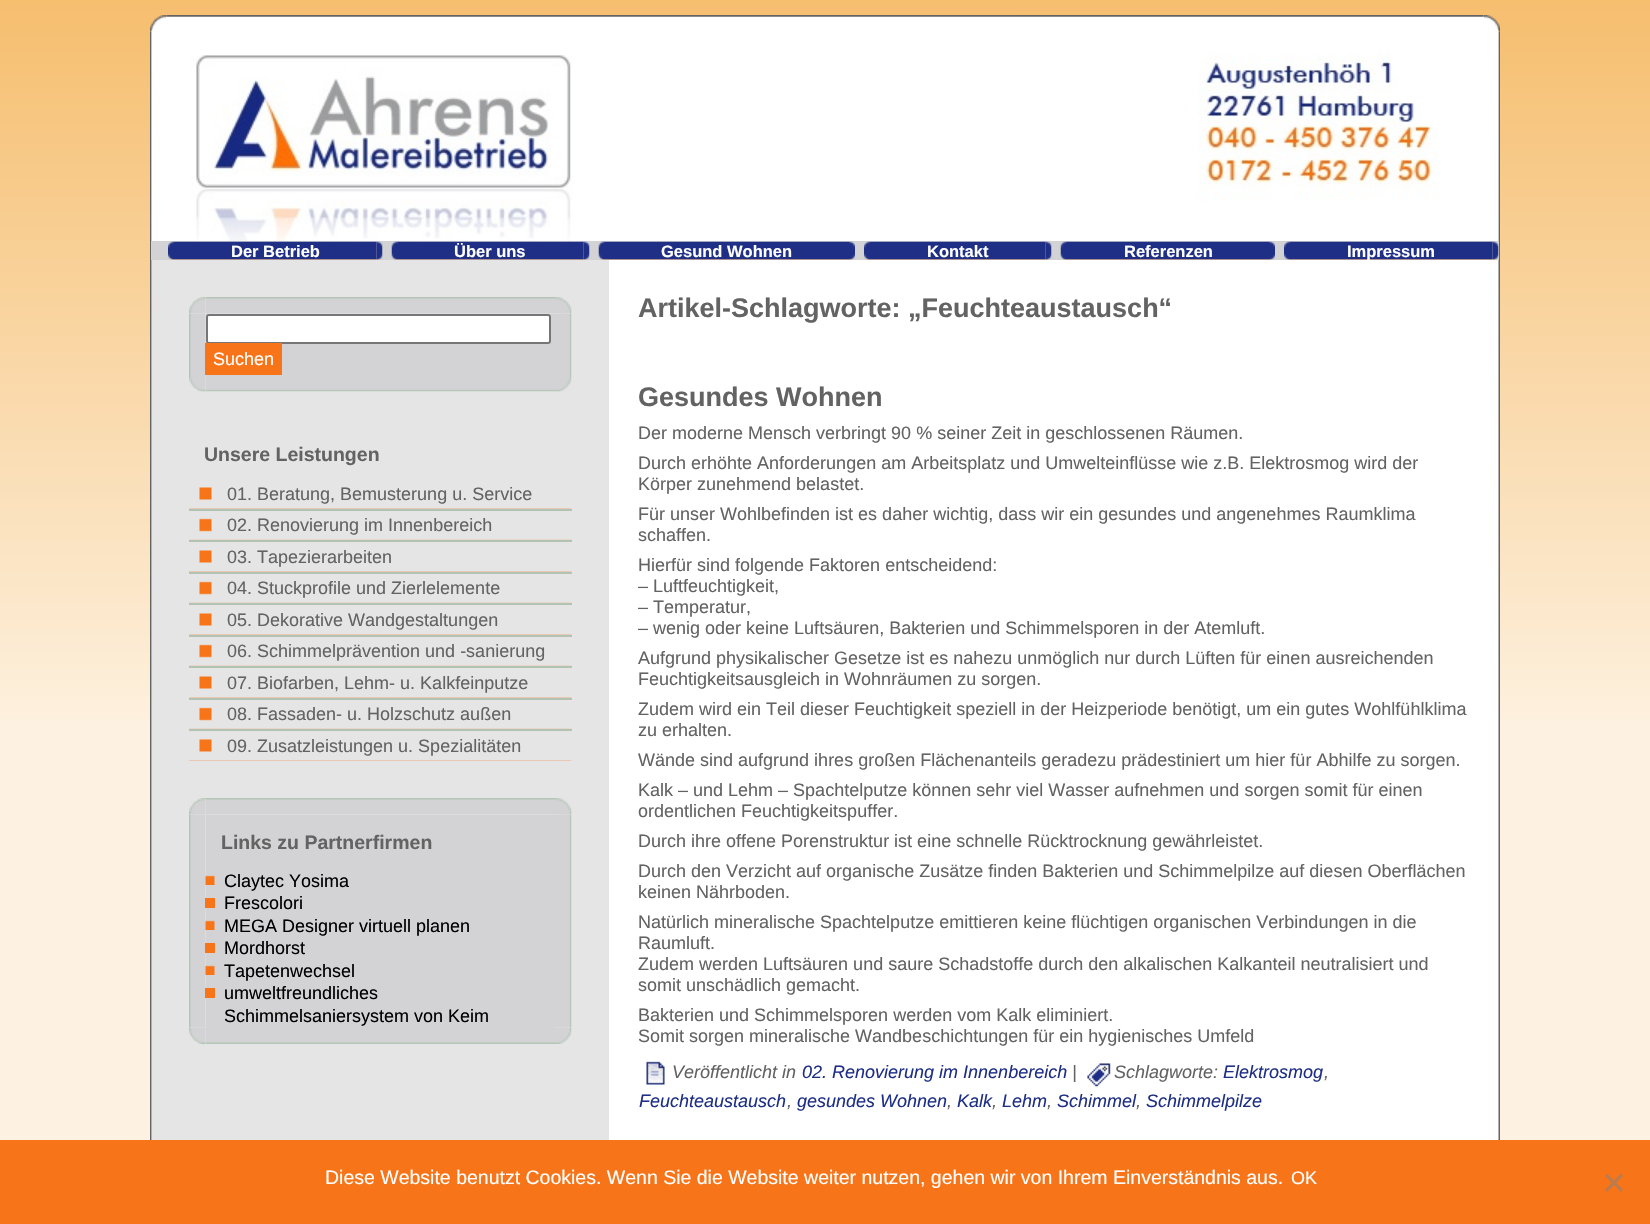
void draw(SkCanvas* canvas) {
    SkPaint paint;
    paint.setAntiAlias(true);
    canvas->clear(0xFFFDF2E2);
    canvas->drawImageRect(SkImages::DeferredFromEncodedData(SkData::MakeFromFileName("img1.png")), SkRect::MakeXYWH(0, 0, 1650, 720), SkSamplingOptions());
    canvas->drawImageRect(SkImages::DeferredFromEncodedData(SkData::MakeFromFileName("img2.png")), SkRect::MakeXYWH(150, 15, 17, 17), SkSamplingOptions());
    canvas->drawImageRect(SkImages::DeferredFromEncodedData(SkData::MakeFromFileName("img4.png")), SkRect::MakeXYWH(1483, 15, 17, 17), SkSamplingOptions());
    canvas->drawImageRect(SkImages::DeferredFromEncodedData(SkData::MakeFromFileName("img3.png")), SkRect::MakeXYWH(166, 15, 1318, 4), SkSamplingOptions());
    canvas->drawImageRect(SkImages::DeferredFromEncodedData(SkData::MakeFromFileName("img5.png")), SkRect::MakeXYWH(150, 31, 4, 1109), SkSamplingOptions());
    canvas->drawImageRect(SkImages::DeferredFromEncodedData(SkData::MakeFromFileName("img36.png")), SkRect::MakeXYWH(1484, 31, 16, 1109), SkSamplingOptions());
    canvas->drawImageRect(SkImages::DeferredFromEncodedData(SkData::MakeFromFileName("img6.png")), SkRect::MakeXYWH(151, 16, 1348, 225), SkSamplingOptions());
    canvas->drawImageRect(SkImages::DeferredFromEncodedData(SkData::MakeFromFileName("img7.png")), SkRect::MakeXYWH(169, 34, 1312, 193), SkSamplingOptions());
    paint.setColor(0xFFD3D3D5);
    canvas->drawRect(SkRect::MakeXYWH(151, 241, 1348, 19), paint);
    canvas->drawImageRect(SkImages::DeferredFromEncodedData(SkData::MakeFromFileName("img8.png")), SkRect::MakeXYWH(168, 241, 209, 19), SkSamplingOptions());
    canvas->drawImageRect(SkImages::DeferredFromEncodedData(SkData::MakeFromFileName("img9.png")), SkRect::MakeXYWH(376, 241, 7, 19), SkSamplingOptions());
    SkFont font1(fontMgr->matchFamilyStyle("Liberation Sans", SkFontStyle::Bold()), 16.5f);
    font1.setSubpixel(true);
    paint.setColor(0xFFFFFFFF);
    canvas->drawString("Der Betrieb", 231, 257, font1, paint);
    canvas->drawImageRect(SkImages::DeferredFromEncodedData(SkData::MakeFromFileName("img10.png")), SkRect::MakeXYWH(391, 241, 193, 19), SkSamplingOptions());
    canvas->drawImageRect(SkImages::DeferredFromEncodedData(SkData::MakeFromFileName("img9.png")), SkRect::MakeXYWH(583, 241, 7, 19), SkSamplingOptions());
    canvas->drawString("Über uns", 454, 257, font1, paint);
    canvas->drawImageRect(SkImages::DeferredFromEncodedData(SkData::MakeFromFileName("img11.png")), SkRect::MakeXYWH(598, 241, 251, 19), SkSamplingOptions());
    canvas->drawImageRect(SkImages::DeferredFromEncodedData(SkData::MakeFromFileName("img12.png")), SkRect::MakeXYWH(849, 241, 6, 19), SkSamplingOptions());
    canvas->drawString("Gesund Wohnen", 661, 257, font1, paint);
    canvas->drawImageRect(SkImages::DeferredFromEncodedData(SkData::MakeFromFileName("img13.png")), SkRect::MakeXYWH(864, 241, 182, 19), SkSamplingOptions());
    canvas->drawImageRect(SkImages::DeferredFromEncodedData(SkData::MakeFromFileName("img9.png")), SkRect::MakeXYWH(1045, 241, 7, 19), SkSamplingOptions());
    canvas->drawString("Kontakt", 927, 257, font1, paint);
    canvas->drawImageRect(SkImages::DeferredFromEncodedData(SkData::MakeFromFileName("img14.png")), SkRect::MakeXYWH(1060, 241, 209, 19), SkSamplingOptions());
    canvas->drawImageRect(SkImages::DeferredFromEncodedData(SkData::MakeFromFileName("img12.png")), SkRect::MakeXYWH(1269, 241, 6, 19), SkSamplingOptions());
    canvas->drawString("Referenzen", 1124, 257, font1, paint);
    canvas->drawImageRect(SkImages::DeferredFromEncodedData(SkData::MakeFromFileName("img15.png")), SkRect::MakeXYWH(1284, 241, 209, 19), SkSamplingOptions());
    canvas->drawImageRect(SkImages::DeferredFromEncodedData(SkData::MakeFromFileName("img9.png")), SkRect::MakeXYWH(1492, 241, 7, 19), SkSamplingOptions());
    canvas->drawString("Impressum", 1347, 257, font1, paint);
    paint.setColor(0xFFE5E5E6);
    canvas->drawRect(SkRect::MakeXYWH(152, 260, 457, 880), paint);
    canvas->drawImageRect(SkImages::DeferredFromEncodedData(SkData::MakeFromFileName("img16.png")), SkRect::MakeXYWH(189, 297, 17, 17), SkSamplingOptions());
    canvas->drawImageRect(SkImages::DeferredFromEncodedData(SkData::MakeFromFileName("img17.png")), SkRect::MakeXYWH(205, 297, 350, 17), SkSamplingOptions());
    canvas->drawImageRect(SkImages::DeferredFromEncodedData(SkData::MakeFromFileName("img18.png")), SkRect::MakeXYWH(555, 297, 17, 17), SkSamplingOptions());
    canvas->drawImageRect(SkImages::DeferredFromEncodedData(SkData::MakeFromFileName("img19.png")), SkRect::MakeXYWH(189, 313, 17, 62), SkSamplingOptions());
    paint.setColor(0xFFD3D3D5);
    canvas->drawRect(SkRect::MakeXYWH(206, 314, 349, 61), paint);
    canvas->drawImageRect(SkImages::DeferredFromEncodedData(SkData::MakeFromFileName("img20.png")), SkRect::MakeXYWH(555, 313, 17, 62), SkSamplingOptions());
    paint.setColor(0xFFFFFFFF);
    canvas->drawRoundRect(SkRect::MakeXYWH(207, 315, 343, 28), 2, 2, paint);
    paint.setStyle(SkPaint::kStroke_Style);
    paint.setStrokeWidth(2);
    paint.setColor(0xFF767676);
    canvas->drawRoundRect(SkRect::MakeXYWH(207, 315, 343, 28), 2, 2, paint);
    paint.setStyle(SkPaint::kFill_Style);
    paint.setColor(0xFFF77518);
    canvas->drawRect(SkRect::MakeXYWH(205, 343, 77, 32), paint);
    SkFont font2(fontMgr->matchFamilyStyle("Liberation Sans", SkFontStyle::Normal()), 18);
    font2.setSubpixel(true);
    paint.setColor(0xFFFFFFFF);
    canvas->drawString("Suchen", 213, 365, font2, paint);
    canvas->drawImageRect(SkImages::DeferredFromEncodedData(SkData::MakeFromFileName("img21.png")), SkRect::MakeXYWH(189, 375, 17, 17), SkSamplingOptions());
    canvas->drawImageRect(SkImages::DeferredFromEncodedData(SkData::MakeFromFileName("img22.png")), SkRect::MakeXYWH(205, 375, 350, 17), SkSamplingOptions());
    canvas->drawImageRect(SkImages::DeferredFromEncodedData(SkData::MakeFromFileName("img23.png")), SkRect::MakeXYWH(555, 375, 17, 17), SkSamplingOptions());
    SkFont font3(fontMgr->matchFamilyStyle("Liberation Sans", SkFontStyle::Bold()), 19.5f);
    font3.setSubpixel(true);
    paint.setColor(0xFF636363);
    canvas->drawString("Unsere Leistungen", 204, 461, font3, paint);
    canvas->drawImageRect(SkImages::DeferredFromEncodedData(SkData::MakeFromFileName("img24.png")), SkRect::MakeXYWH(189, 487, 360, 22), SkSamplingOptions());
    canvas->drawString("01. Beratung, Bemusterung u. Service", 227, 500, font2, paint);
    canvas->drawImageRect(SkImages::DeferredFromEncodedData(SkData::MakeFromFileName("img25.png")), SkRect::MakeXYWH(549, 508, 23, 1), SkSamplingOptions());
    paint.setColor(0xFFB2C2B3);
    canvas->drawRect(SkRect::MakeXYWH(189, 509, 383, 2), paint);
    canvas->drawImageRect(SkImages::DeferredFromEncodedData(SkData::MakeFromFileName("img26.png")), SkRect::MakeXYWH(189, 518, 360, 22), SkSamplingOptions());
    paint.setColor(0xFF636363);
    canvas->drawString("02. Renovierung im Innenbereich", 227, 531, font2, paint);
    canvas->drawImageRect(SkImages::DeferredFromEncodedData(SkData::MakeFromFileName("img27.png")), SkRect::MakeXYWH(549, 539, 23, 1), SkSamplingOptions());
    paint.setColor(0xFFB2C2B3);
    canvas->drawRect(SkRect::MakeXYWH(189, 540, 383, 2), paint);
    canvas->drawImageRect(SkImages::DeferredFromEncodedData(SkData::MakeFromFileName("img24.png")), SkRect::MakeXYWH(189, 550, 360, 22), SkSamplingOptions());
    paint.setColor(0xFF636363);
    canvas->drawString("03. Tapezierarbeiten", 227, 563, font2, paint);
    canvas->drawImageRect(SkImages::DeferredFromEncodedData(SkData::MakeFromFileName("img25.png")), SkRect::MakeXYWH(549, 571, 23, 1), SkSamplingOptions());
    paint.setColor(0xFFB2C2B3);
    canvas->drawRect(SkRect::MakeXYWH(189, 572, 383, 2), paint);
    canvas->drawImageRect(SkImages::DeferredFromEncodedData(SkData::MakeFromFileName("img26.png")), SkRect::MakeXYWH(189, 581, 360, 22), SkSamplingOptions());
    paint.setColor(0xFF636363);
    canvas->drawString("04. Stuckprofile und Zierlelemente", 227, 594, font2, paint);
    canvas->drawImageRect(SkImages::DeferredFromEncodedData(SkData::MakeFromFileName("img27.png")), SkRect::MakeXYWH(549, 602, 23, 1), SkSamplingOptions());
    paint.setColor(0xFFB2C2B3);
    canvas->drawRect(SkRect::MakeXYWH(189, 603, 383, 2), paint);
    canvas->drawImageRect(SkImages::DeferredFromEncodedData(SkData::MakeFromFileName("img24.png")), SkRect::MakeXYWH(189, 613, 360, 22), SkSamplingOptions());
    paint.setColor(0xFF636363);
    canvas->drawString("05. Dekorative Wandgestaltungen", 227, 626, font2, paint);
    canvas->drawImageRect(SkImages::DeferredFromEncodedData(SkData::MakeFromFileName("img25.png")), SkRect::MakeXYWH(549, 634, 23, 1), SkSamplingOptions());
    paint.setColor(0xFFB2C2B3);
    canvas->drawRect(SkRect::MakeXYWH(189, 635, 383, 2), paint);
    canvas->drawImageRect(SkImages::DeferredFromEncodedData(SkData::MakeFromFileName("img26.png")), SkRect::MakeXYWH(189, 644, 360, 22), SkSamplingOptions());
    paint.setColor(0xFF636363);
    canvas->drawString("06. Schimmelprävention und -sanierung", 227, 657, font2, paint);
    canvas->drawImageRect(SkImages::DeferredFromEncodedData(SkData::MakeFromFileName("img27.png")), SkRect::MakeXYWH(549, 665, 23, 1), SkSamplingOptions());
    paint.setColor(0xFFB2C2B3);
    canvas->drawRect(SkRect::MakeXYWH(189, 666, 383, 2), paint);
    canvas->drawImageRect(SkImages::DeferredFromEncodedData(SkData::MakeFromFileName("img24.png")), SkRect::MakeXYWH(189, 676, 360, 22), SkSamplingOptions());
    paint.setColor(0xFF636363);
    canvas->drawString("07. Biofarben, Lehm- u. Kalkfeinputze", 227, 689, font2, paint);
    canvas->drawImageRect(SkImages::DeferredFromEncodedData(SkData::MakeFromFileName("img25.png")), SkRect::MakeXYWH(549, 697, 23, 1), SkSamplingOptions());
    paint.setColor(0xFFB2C2B3);
    canvas->drawRect(SkRect::MakeXYWH(189, 698, 383, 2), paint);
    canvas->drawImageRect(SkImages::DeferredFromEncodedData(SkData::MakeFromFileName("img26.png")), SkRect::MakeXYWH(189, 707, 360, 22), SkSamplingOptions());
    paint.setColor(0xFF636363);
    canvas->drawString("08. Fassaden- u. Holzschutz außen", 227, 720, font2, paint);
    canvas->drawImageRect(SkImages::DeferredFromEncodedData(SkData::MakeFromFileName("img27.png")), SkRect::MakeXYWH(549, 728, 23, 1), SkSamplingOptions());
    paint.setColor(0xFFB2C2B3);
    canvas->drawRect(SkRect::MakeXYWH(189, 729, 383, 2), paint);
    canvas->drawImageRect(SkImages::DeferredFromEncodedData(SkData::MakeFromFileName("img24.png")), SkRect::MakeXYWH(189, 739, 360, 22), SkSamplingOptions());
    paint.setColor(0xFF636363);
    canvas->drawString("09. Zusatzleistungen u. Spezialitäten", 227, 752, font2, paint);
    canvas->drawImageRect(SkImages::DeferredFromEncodedData(SkData::MakeFromFileName("img25.png")), SkRect::MakeXYWH(549, 760, 23, 1), SkSamplingOptions());
    canvas->drawImageRect(SkImages::DeferredFromEncodedData(SkData::MakeFromFileName("img16.png")), SkRect::MakeXYWH(189, 798, 17, 17), SkSamplingOptions());
    canvas->drawImageRect(SkImages::DeferredFromEncodedData(SkData::MakeFromFileName("img17.png")), SkRect::MakeXYWH(205, 798, 350, 17), SkSamplingOptions());
    canvas->drawImageRect(SkImages::DeferredFromEncodedData(SkData::MakeFromFileName("img18.png")), SkRect::MakeXYWH(555, 798, 17, 17), SkSamplingOptions());
    canvas->drawImageRect(SkImages::DeferredFromEncodedData(SkData::MakeFromFileName("img31.png")), SkRect::MakeXYWH(189, 1027, 17, 17), SkSamplingOptions());
    canvas->drawImageRect(SkImages::DeferredFromEncodedData(SkData::MakeFromFileName("img32.png")), SkRect::MakeXYWH(205, 1027, 350, 17), SkSamplingOptions());
    canvas->drawImageRect(SkImages::DeferredFromEncodedData(SkData::MakeFromFileName("img28.png")), SkRect::MakeXYWH(189, 814, 17, 214), SkSamplingOptions());
    paint.setColor(0xFFD3D3D5);
    canvas->drawRect(SkRect::MakeXYWH(206, 815, 349, 213), paint);
    canvas->drawImageRect(SkImages::DeferredFromEncodedData(SkData::MakeFromFileName("img33.png")), SkRect::MakeXYWH(555, 1027, 17, 17), SkSamplingOptions());
    canvas->drawImageRect(SkImages::DeferredFromEncodedData(SkData::MakeFromFileName("img29.png")), SkRect::MakeXYWH(555, 814, 17, 214), SkSamplingOptions());
    paint.setColor(0xFF636363);
    canvas->drawString("Links zu Partnerfirmen", 221, 849, font3, paint);
    canvas->drawImageRect(SkImages::DeferredFromEncodedData(SkData::MakeFromFileName("img30.png")), SkRect::MakeXYWH(205, 875, 10, 10), SkSamplingOptions());
    paint.setColor(0xFF000000);
    canvas->drawString("Claytec Yosima", 224, 887, font2, paint);
    paint.setColor(0xFFF77518);
    canvas->drawRect(SkRect::MakeXYWH(205, 898, 10, 10), paint);
    paint.setColor(0xFF000000);
    canvas->drawString("Frescolori", 224, 909, font2, paint);
    canvas->drawImageRect(SkImages::DeferredFromEncodedData(SkData::MakeFromFileName("img30.png")), SkRect::MakeXYWH(205, 920, 10, 10), SkSamplingOptions());
    canvas->drawString("MEGA Designer virtuell planen", 224, 932, font2, paint);
    paint.setColor(0xFFF77518);
    canvas->drawRect(SkRect::MakeXYWH(205, 943, 10, 10), paint);
    paint.setColor(0xFF000000);
    canvas->drawString("Mordhorst", 224, 954, font2, paint);
    canvas->drawImageRect(SkImages::DeferredFromEncodedData(SkData::MakeFromFileName("img30.png")), SkRect::MakeXYWH(205, 965, 10, 10), SkSamplingOptions());
    canvas->drawString("Tapetenwechsel", 224, 977, font2, paint);
    paint.setColor(0xFFF77518);
    canvas->drawRect(SkRect::MakeXYWH(205, 988, 10, 10), paint);
    paint.setColor(0xFF000000);
    canvas->drawString("umweltfreundliches", 224, 999, font2, paint);
    canvas->drawString("Schimmelsaniersystem von Keim", 224, 1022, font2, paint);
    paint.setColor(0xFFFFFFFF);
    canvas->drawRect(SkRect::MakeXYWH(609, 260, 875, 880), paint);
    SkFont font4(fontMgr->matchFamilyStyle("Liberation Sans", SkFontStyle::Bold()), 27);
    font4.setSubpixel(true);
    paint.setColor(0xFF636363);
    canvas->drawString("Artikel-Schlagworte: „Feuchteaustausch“", 638, 317, font4, paint);
    canvas->drawString("Gesundes Wohnen", 638, 406, font4, paint);
    canvas->drawString("Der moderne Mensch verbringt 90 % seiner Zeit in geschlossenen Räumen.", 638, 439, font2, paint);
    canvas->drawString("Durch erhöhte Anforderungen am Arbeitsplatz und Umwelteinflüsse wie z.B. Elektrosmog wird der", 638, 469, font2, paint);
    canvas->drawString("Körper zunehmend belastet.", 638, 490, font2, paint);
    canvas->drawString("Für unser Wohlbefinden ist es daher wichtig, dass wir ein gesundes und angenehmes Raumklima", 638, 520, font2, paint);
    canvas->drawString("schaffen.", 638, 541, font2, paint);
    canvas->drawString("Hierfür sind folgende Faktoren entscheidend:", 638, 571, font2, paint);
    canvas->drawString("– Luftfeuchtigkeit,", 638, 592, font2, paint);
    canvas->drawString("– Temperatur,", 638, 613, font2, paint);
    canvas->drawString("– wenig oder keine Luftsäuren, Bakterien und Schimmelsporen in der Atemluft.", 638, 634, font2, paint);
    canvas->drawString("Aufgrund physikalischer Gesetze ist es nahezu unmöglich nur durch Lüften für einen ausreichenden", 638, 664, font2, paint);
    canvas->drawString("Feuchtigkeitsausgleich in Wohnräumen zu sorgen.", 638, 685, font2, paint);
    canvas->drawString("Zudem wird ein Teil dieser Feuchtigkeit speziell in der Heizperiode benötigt, um ein gutes Wohlfühlklima", 638, 715, font2, paint);
    canvas->drawString("zu erhalten.", 638, 736, font2, paint);
    canvas->drawString("Wände sind aufgrund ihres großen Flächenanteils geradezu prädestiniert um hier für Abhilfe zu sorgen.", 638, 766, font2, paint);
    canvas->drawString("Kalk – und Lehm – Spachtelputze können sehr viel Wasser aufnehmen und sorgen somit für einen", 638, 796, font2, paint);
    canvas->drawString("ordentlichen Feuchtigkeitspuffer.", 638, 817, font2, paint);
    canvas->drawString("Durch ihre offene Porenstruktur ist eine schnelle Rücktrocknung gewährleistet.", 638, 847, font2, paint);
    canvas->drawString("Durch den Verzicht auf organische Zusätze finden Bakterien und Schimmelpilze auf diesen Oberflächen", 638, 877, font2, paint);
    canvas->drawString("keinen Nährboden.", 638, 898, font2, paint);
    canvas->drawString("Natürlich mineralische Spachtelputze emittieren keine flüchtigen organischen Verbindungen in die", 638, 928, font2, paint);
    canvas->drawString("Raumluft.", 638, 949, font2, paint);
    canvas->drawString("Zudem werden Luftsäuren und saure Schadstoffe durch den alkalischen Kalkanteil neutralisiert und", 638, 970, font2, paint);
    canvas->drawString("somit unschädlich gemacht.", 638, 991, font2, paint);
    canvas->drawString("Bakterien und Schimmelsporen werden vom Kalk eliminiert.", 638, 1021, font2, paint);
    canvas->drawString("Somit sorgen mineralische Wandbeschichtungen für ein hygienisches Umfeld", 638, 1042, font2, paint);
    canvas->drawImageRect(SkImages::DeferredFromEncodedData(SkData::MakeFromFileName("img34.png")), SkRect::MakeXYWH(646, 1061, 19, 24), SkSamplingOptions());
    SkFont font5(fontMgr->matchFamilyStyle("Liberation Sans", SkFontStyle::Italic()), 18);
    font5.setSubpixel(true);
    canvas->drawString("Veröffentlicht in", 672, 1078, font5, paint);
    paint.setColor(0xFF1E2F85);
    canvas->drawString("02. Renovierung im Innenbereich", 802, 1078, font5, paint);
    paint.setColor(0xFF636363);
    canvas->drawString("|", 1072, 1078, font5, paint);
    canvas->drawImageRect(SkImages::DeferredFromEncodedData(SkData::MakeFromFileName("img35.png")), SkRect::MakeXYWH(1087, 1063, 24, 24), SkSamplingOptions());
    canvas->drawString("Schlagworte:", 1114, 1078, font5, paint);
    paint.setColor(0xFF1E2F85);
    canvas->drawString("Elektrosmog", 1223, 1078, font5, paint);
    paint.setColor(0xFF636363);
    canvas->drawString(",", 1324, 1078, font5, paint);
    paint.setColor(0xFF1E2F85);
    canvas->drawString("Feuchteaustausch", 639, 1107, font5, paint);
    paint.setColor(0xFF636363);
    canvas->drawString(",", 787, 1107, font5, paint);
    paint.setColor(0xFF1E2F85);
    canvas->drawString("gesundes Wohnen", 797, 1107, font5, paint);
    paint.setColor(0xFF636363);
    canvas->drawString(",", 947, 1107, font5, paint);
    paint.setColor(0xFF1E2F85);
    canvas->drawString("Kalk", 957, 1107, font5, paint);
    paint.setColor(0xFF636363);
    canvas->drawString(",", 992, 1107, font5, paint);
    paint.setColor(0xFF1E2F85);
    canvas->drawString("Lehm", 1002, 1107, font5, paint);
    paint.setColor(0xFF636363);
    canvas->drawString(",", 1047, 1107, font5, paint);
    paint.setColor(0xFF1E2F85);
    canvas->drawString("Schimmel", 1057, 1107, font5, paint);
    paint.setColor(0xFF636363);
    canvas->drawString(",", 1136, 1107, font5, paint);
    paint.setColor(0xFF1E2F85);
    canvas->drawString("Schimmelpilze", 1146, 1107, font5, paint);
    paint.setColor(0xFFF77518);
    canvas->drawRect(SkRect::MakeXYWH(0, 1140, 1650, 84), paint);
    SkFont font6(fontMgr->matchFamilyStyle("Liberation Sans", SkFontStyle::Normal()), 19.5f);
    font6.setSubpixel(true);
    paint.setColor(0xFFFFFFFF);
    canvas->drawString("Diese Website benutzt Cookies. Wenn Sie die Website weiter nutzen, gehen wir von Ihrem Einverständnis aus.", 325, 1184, font6, paint);
    canvas->drawString("OK", 1291, 1184, font2, paint);
    paint.setColor(0xFFBC7B4C);
    canvas->drawPath(SkPathBuilder().moveTo(1621, 1173.5f).lineTo(1623, 1176).lineTo(1607, 1192).lineTo(1605, 1189.5f).close().detach(), paint);
    canvas->drawPath(SkPathBuilder().moveTo(1605, 1176).lineTo(1607, 1173.5f).lineTo(1623, 1189.5f).lineTo(1621, 1192).close().detach(), paint);
}
